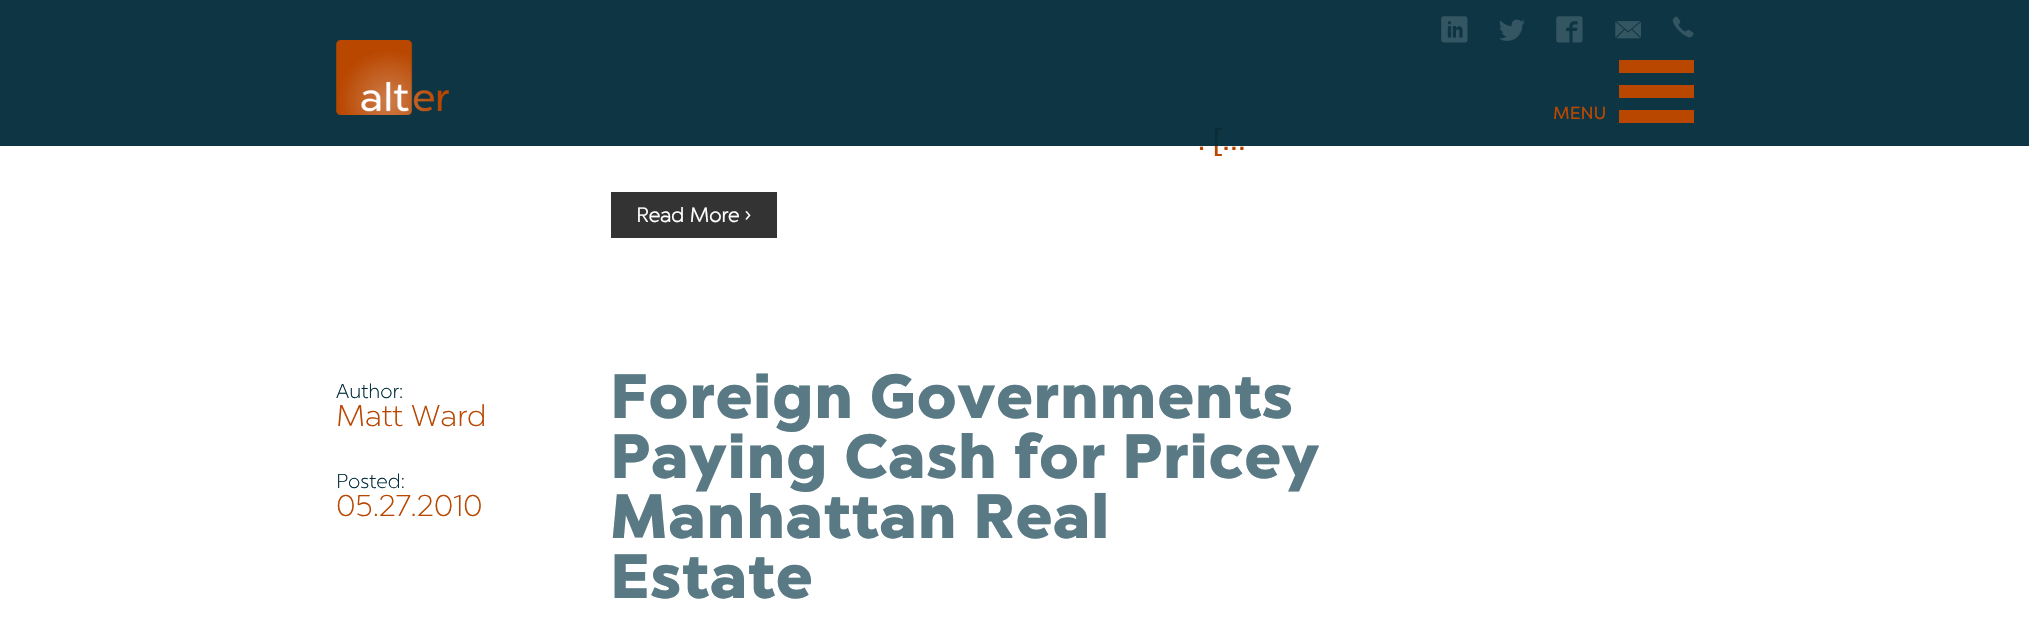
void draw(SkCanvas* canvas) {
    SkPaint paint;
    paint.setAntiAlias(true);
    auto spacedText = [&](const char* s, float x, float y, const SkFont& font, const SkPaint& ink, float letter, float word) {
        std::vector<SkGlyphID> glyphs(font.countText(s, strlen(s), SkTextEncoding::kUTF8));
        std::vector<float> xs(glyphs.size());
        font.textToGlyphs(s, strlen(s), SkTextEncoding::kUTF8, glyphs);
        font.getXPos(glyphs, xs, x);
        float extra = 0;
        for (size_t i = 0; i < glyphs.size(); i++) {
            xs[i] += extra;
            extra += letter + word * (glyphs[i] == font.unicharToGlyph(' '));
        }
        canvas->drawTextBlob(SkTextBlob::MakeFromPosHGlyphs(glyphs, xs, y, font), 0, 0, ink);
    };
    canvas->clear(0xFFFFFFFF);
    SkFont font1(fontMgr->matchFamilyStyle("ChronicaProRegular", SkFontStyle::Normal()), 30);
    font1.setSubpixel(true);
    paint.setColor(0xFFB94700);
    canvas->drawString(". […", 1198, 150, font1, paint);
    paint.setColor(0xF2002A3A);
    canvas->drawRect(SkRect::MakeXYWH(0, 0, 2029, 146), paint);
    canvas->drawImageRect(SkImages::DeferredFromEncodedData(SkData::MakeFromFileName("img1.png")), SkRect::MakeXYWH(336, 40, 113, 75), SkSamplingOptions());
    canvas->drawImageRect(SkImages::DeferredFromEncodedData(SkData::MakeFromFileName("img2.png")), SkRect::MakeXYWH(1441, 16, 27, 27), SkSamplingOptions());
    canvas->drawImageRect(SkImages::DeferredFromEncodedData(SkData::MakeFromFileName("img3.png")), SkRect::MakeXYWH(1499, 19, 26, 22), SkSamplingOptions());
    canvas->drawImageRect(SkImages::DeferredFromEncodedData(SkData::MakeFromFileName("img4.png")), SkRect::MakeXYWH(1556, 16, 27, 27), SkSamplingOptions());
    canvas->drawImageRect(SkImages::DeferredFromEncodedData(SkData::MakeFromFileName("img5.png")), SkRect::MakeXYWH(1615, 21, 26, 18), SkSamplingOptions());
    canvas->drawImageRect(SkImages::DeferredFromEncodedData(SkData::MakeFromFileName("img6.png")), SkRect::MakeXYWH(1672, 16, 22, 22), SkSamplingOptions());
    SkFont font2(fontMgr->matchFamilyStyle("ChronicaProRegular", SkFontStyle::Normal()), 17.5f);
    font2.setSubpixel(true);
    paint.setColor(0xFFB94700);
    canvas->drawString("MENU", 1553, 119, font2, paint);
    canvas->drawRect(SkRect::MakeXYWH(1619, 110, 75, 13), paint);
    canvas->drawRect(SkRect::MakeXYWH(1619, 60, 75, 13), paint);
    canvas->drawRect(SkRect::MakeXYWH(1619, 85, 75, 13), paint);
    paint.setColor(0xFF333333);
    canvas->drawRect(SkRect::MakeXYWH(611, 192, 166, 46), paint);
    SkFont font3(fontMgr->matchFamilyStyle("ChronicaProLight", SkFontStyle::Bold()), 20);
    font3.setSubpixel(true);
    paint.setColor(0xFFFFFFFF);
    canvas->drawString("Read More ›", 636, 222, font3, paint);
    SkFont font4(fontMgr->matchFamilyStyle("ChronicaProLight", SkFontStyle::Normal()), 20);
    font4.setSubpixel(true);
    paint.setColor(0xFF002A3A);
    canvas->drawString("Author:", 336, 398, font4, paint);
    SkFont font5(fontMgr->matchFamilyStyle("ChronicaProLight", SkFontStyle::Normal()), 30);
    font5.setSubpixel(true);
    paint.setColor(0xFFB94700);
    canvas->drawString("Matt Ward", 336, 426, font5, paint);
    paint.setColor(0xFF002A3A);
    canvas->drawString("Posted:", 336, 488, font4, paint);
    paint.setColor(0xFFB94700);
    canvas->drawString("05.27.2010", 336, 516, font5, paint);
    SkFont font6(fontMgr->matchFamilyStyle("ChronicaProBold", SkFontStyle::Bold()), 60);
    font6.setSubpixel(true);
    paint.setColor(0xFF597985);
    spacedText("Foreign Governments", 610, 418, font6, paint, 2.5f, 0);
    spacedText("Paying Cash for Pricey", 610, 478, font6, paint, 2.5f, 0);
    spacedText("Manhattan Real", 610, 538, font6, paint, 2.5f, 0);
    spacedText("Estate", 610, 598, font6, paint, 2.5f, 0);
}
